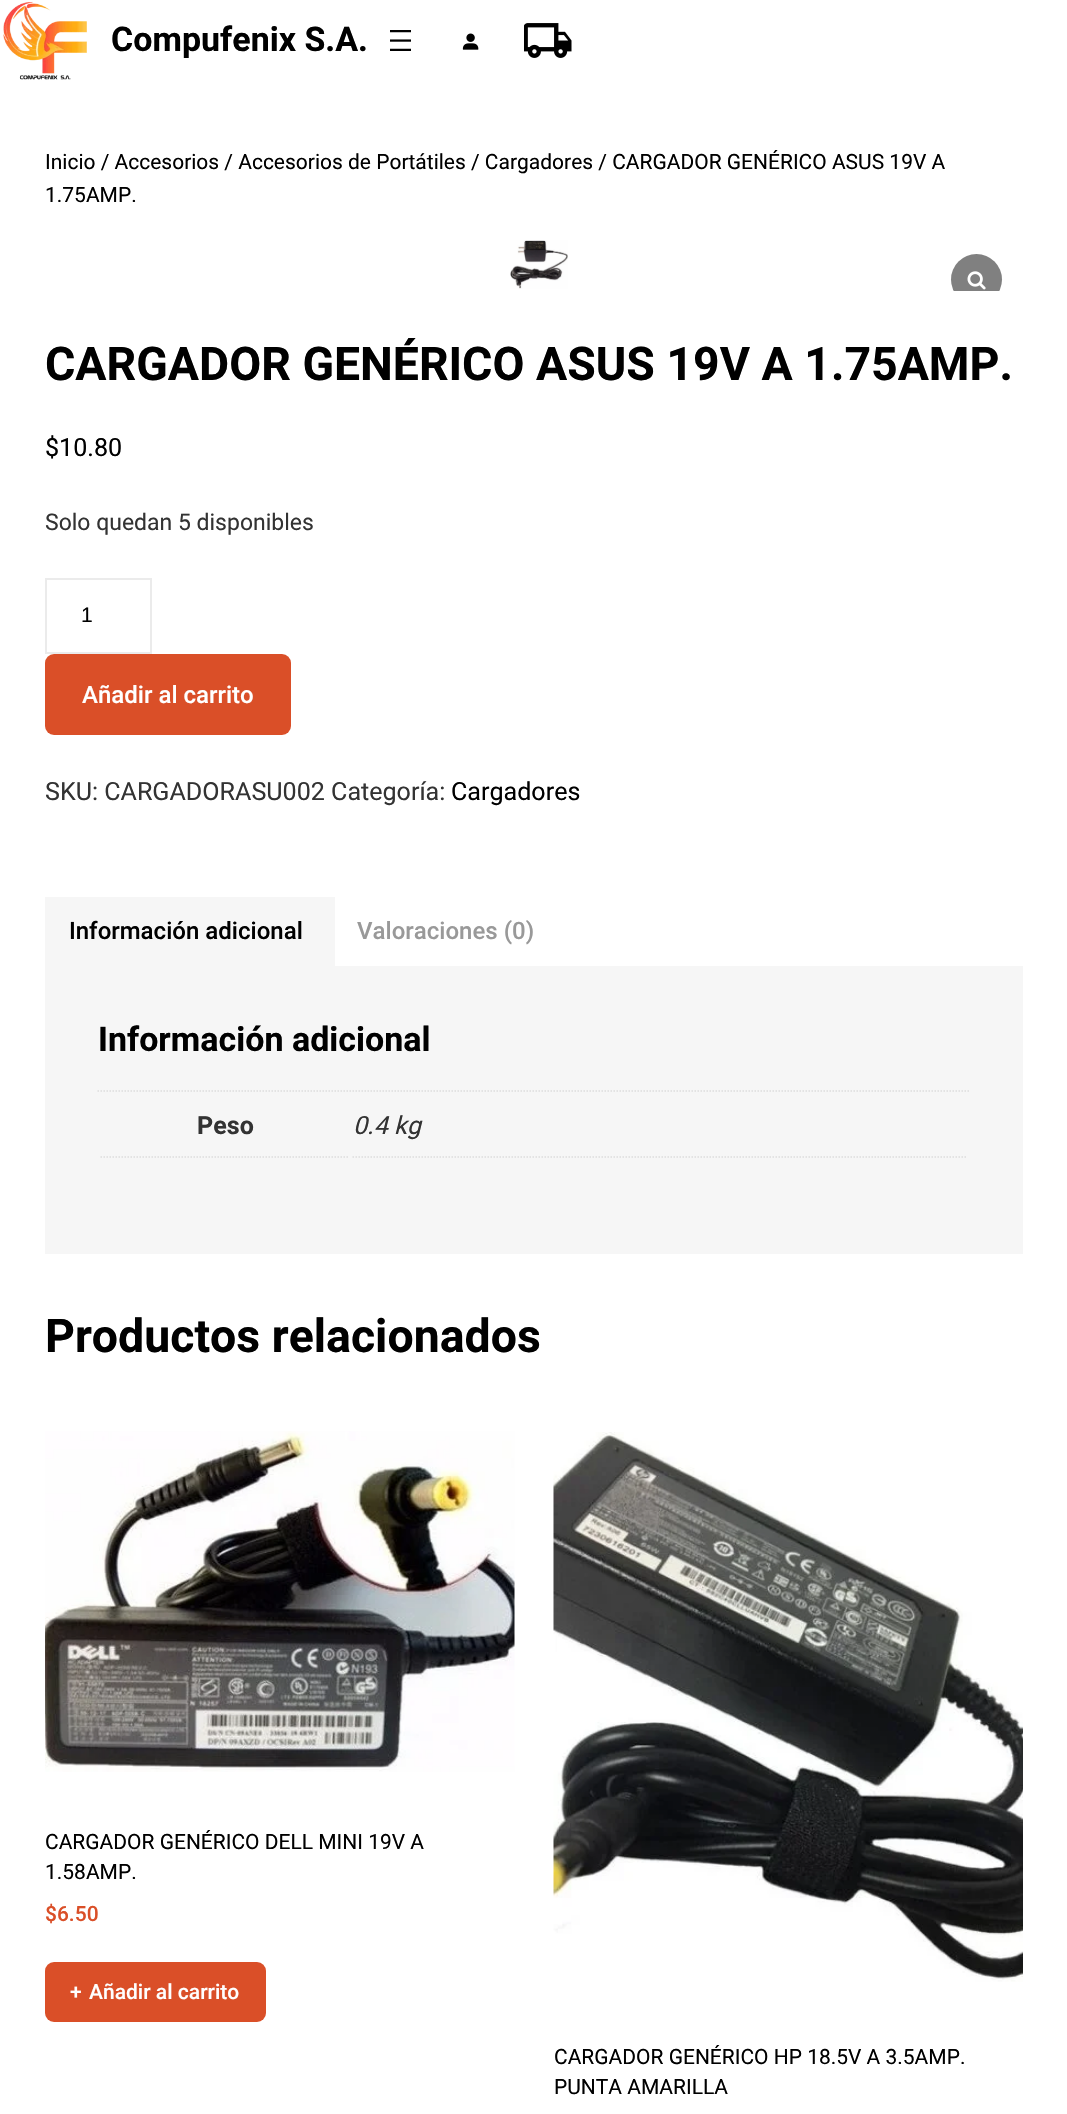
void draw(SkCanvas* canvas) {
    SkPaint paint;
    paint.setAntiAlias(true);
    canvas->clear(0xFFFFFFFF);
    canvas->drawImageRect(SkImages::DeferredFromEncodedData(SkData::MakeFromFileName("img1.png")), SkRect::MakeXYWH(3, 1, 84, 79), SkSamplingOptions());
    SkFont font1(fontMgr->matchFamilyStyle("Roboto", SkFontStyle::Bold()), 34);
    font1.setSubpixel(true);
    paint.setColor(0xFF000000);
    canvas->drawString("Compufenix S.A.", 111, 51, font1, paint);
    canvas->drawImageRect(SkImages::DeferredFromEncodedData(SkData::MakeFromFileName("img2.png")), SkRect::MakeXYWH(390, 30, 21, 21), SkSamplingOptions());
    canvas->drawImageRect(SkImages::DeferredFromEncodedData(SkData::MakeFromFileName("img3.png")), SkRect::MakeXYWH(462, 33, 17, 17), SkSamplingOptions());
    canvas->drawImageRect(SkImages::DeferredFromEncodedData(SkData::MakeFromFileName("img4.png")), SkRect::MakeXYWH(524, 23, 48, 35), SkSamplingOptions());
    SkFont font2(fontMgr->matchFamilyStyle("Roboto", SkFontStyle::Normal()), 21);
    font2.setSubpixel(true);
    canvas->drawString("Inicio / Accesorios / Accesorios de Portátiles / Cargadores / CARGADOR GENÉRICO ASUS 19V A", 45, 169, font2, paint);
    canvas->drawString("1.75AMP.", 45, 202, font2, paint);
    canvas->drawImageRect(SkImages::DeferredFromEncodedData(SkData::MakeFromFileName("img5.png")), SkRect::MakeXYWH(510, 240, 58, 49), SkSamplingOptions());
    canvas->save();
    canvas->clipRect(SkRect::MakeXYWH(45, 233, 978, 58));
    paint.setColor(0xFF808080);
    canvas->drawCircle(976.5f, 279.5f, 25.5f, paint);
    canvas->restore();
    canvas->drawImageRect(SkImages::DeferredFromEncodedData(SkData::MakeFromFileName("img6.png")), SkRect::MakeXYWH(967, 271, 19, 19), SkSamplingOptions());
    SkFont font3(fontMgr->matchFamilyStyle("Roboto", SkFontStyle::Bold()), 46.4f);
    font3.setSubpixel(true);
    paint.setColor(0xFF000000);
    canvas->drawString("CARGADOR GENÉRICO ASUS 19V A 1.75AMP.", 45, 380, font3, paint);
    SkFont font4(fontMgr->matchFamilyStyle("Roboto", SkFontStyle::Normal()), 25.1f);
    font4.setSubpixel(true);
    canvas->drawString("$10.80", 45, 456, font4, paint);
    SkFont font5(fontMgr->matchFamilyStyle("Roboto", SkFontStyle::Normal()), 23);
    font5.setSubpixel(true);
    paint.setColor(0xFF333333);
    canvas->drawString("Solo quedan 5 disponibles", 45, 530, font5, paint);
    paint.setStyle(SkPaint::kStroke_Style);
    paint.setStrokeWidth(2);
    paint.setColor(0xFFEBEBEB);
    canvas->drawRect(SkRect::MakeXYWH(46, 579, 105, 74), paint);
    SkFont font6(fontMgr->matchFamilyStyle("Liberation Sans", SkFontStyle::Normal()), 21);
    font6.setSubpixel(true);
    paint.setStyle(SkPaint::kFill_Style);
    paint.setColor(0xFF000000);
    canvas->drawString("1", 81, 622, font6, paint);
    paint.setColor(0xFFDA4F28);
    canvas->drawRoundRect(SkRect::MakeXYWH(45, 654, 246, 81), 9, 9, paint);
    SkFont font7(fontMgr->matchFamilyStyle("Roboto", SkFontStyle(500, SkFontStyle::kNormal_Width, SkFontStyle::kUpright_Slant)), 24);
    font7.setSubpixel(true);
    paint.setColor(0xFFFFFFFF);
    canvas->drawString("Añadir al carrito", 82, 703, font7, paint);
    paint.setColor(0xFF333333);
    canvas->drawString("SKU: CARGADORASU002 Categoría:", 45, 800, font4, paint);
    paint.setColor(0xFF000000);
    canvas->drawString("Cargadores", 451, 800, font4, paint);
    paint.setColor(0xFFF6F6F6);
    canvas->drawRect(SkRect::MakeXYWH(45, 897, 290, 69), paint);
    paint.setColor(0xFF000000);
    canvas->drawString("Información adicional", 69, 939, font7, paint);
    paint.setColor(0xFF999999);
    canvas->drawString("Valoraciones (0)", 357, 939, font7, paint);
    paint.setColor(0xFFF6F6F6);
    canvas->drawRect(SkRect::MakeXYWH(45, 966, 978, 288), paint);
    paint.setColor(0xFF000000);
    canvas->drawString("Información adicional", 98, 1051, font1, paint);
    paint.setStyle(SkPaint::kStroke_Style);
    paint.setStrokeWidth(1.5f);
    paint.setColor(0xFFDDDDDD);
    paint.setPathEffect(SkDashPathEffect::Make({{1.5f, 1.5f}}, 0));
    canvas->drawPath(SkPathBuilder().moveTo(97.5f, 1091).lineTo(970.5f, 1091).detach(), paint);
    paint.setPathEffect(nullptr);
    paint.setPathEffect(SkDashPathEffect::Make({{1.5f, 1.5f}}, 0));
    canvas->drawPath(SkPathBuilder().moveTo(100.5f, 1157).lineTo(349.5f, 1157).detach(), paint);
    paint.setPathEffect(nullptr);
    SkFont font8(fontMgr->matchFamilyStyle("Roboto", SkFontStyle::Bold()), 25.1f);
    font8.setSubpixel(true);
    paint.setStyle(SkPaint::kFill_Style);
    paint.setColor(0xFF333333);
    canvas->drawString("Peso", 197, 1134, font8, paint);
    paint.setStyle(SkPaint::kStroke_Style);
    paint.setColor(0xFFDDDDDD);
    paint.setPathEffect(SkDashPathEffect::Make({{1.5f, 1.5f}}, 0));
    canvas->drawPath(SkPathBuilder().moveTo(352.5f, 1157).lineTo(967.5f, 1157).detach(), paint);
    paint.setPathEffect(nullptr);
    SkFont font9(fontMgr->matchFamilyStyle("Roboto", SkFontStyle::Italic()), 25.1f);
    font9.setSubpixel(true);
    paint.setStyle(SkPaint::kFill_Style);
    paint.setColor(0xFF333333);
    canvas->drawString("0.4 kg", 353, 1134, font9, paint);
    paint.setColor(0xFF000000);
    canvas->drawString("Productos relacionados", 45, 1352, font3, paint);
    canvas->drawImageRect(SkImages::DeferredFromEncodedData(SkData::MakeFromFileName("img7.png")), SkRect::MakeXYWH(45, 1431, 470, 341), SkSamplingOptions());
    canvas->drawString("CARGADOR GENÉRICO DELL MINI 19V A", 45, 1849, font2, paint);
    canvas->drawString("1.58AMP.", 45, 1879, font2, paint);
    SkFont font10(fontMgr->matchFamilyStyle("Roboto", SkFontStyle(500, SkFontStyle::kNormal_Width, SkFontStyle::kUpright_Slant)), 21);
    font10.setSubpixel(true);
    paint.setColor(0xFFDA4F28);
    canvas->drawString("$6.50", 45, 1921, font10, paint);
    canvas->drawRoundRect(SkRect::MakeXYWH(45, 1962, 221, 60), 9, 9, paint);
    paint.setColor(0xFFFFFFFF);
    canvas->drawString("+", 70, 1999, font10, paint);
    canvas->drawString("Añadir al carrito", 89, 1999, font10, paint);
    canvas->drawImageRect(SkImages::DeferredFromEncodedData(SkData::MakeFromFileName("img8.png")), SkRect::MakeXYWH(553, 1432, 470, 550), SkSamplingOptions());
    paint.setColor(0xFF000000);
    canvas->drawString("CARGADOR GENÉRICO HP 18.5V A 3.5AMP.", 554, 2064, font2, paint);
    canvas->drawString("PUNTA AMARILLA", 554, 2094, font2, paint);
}
